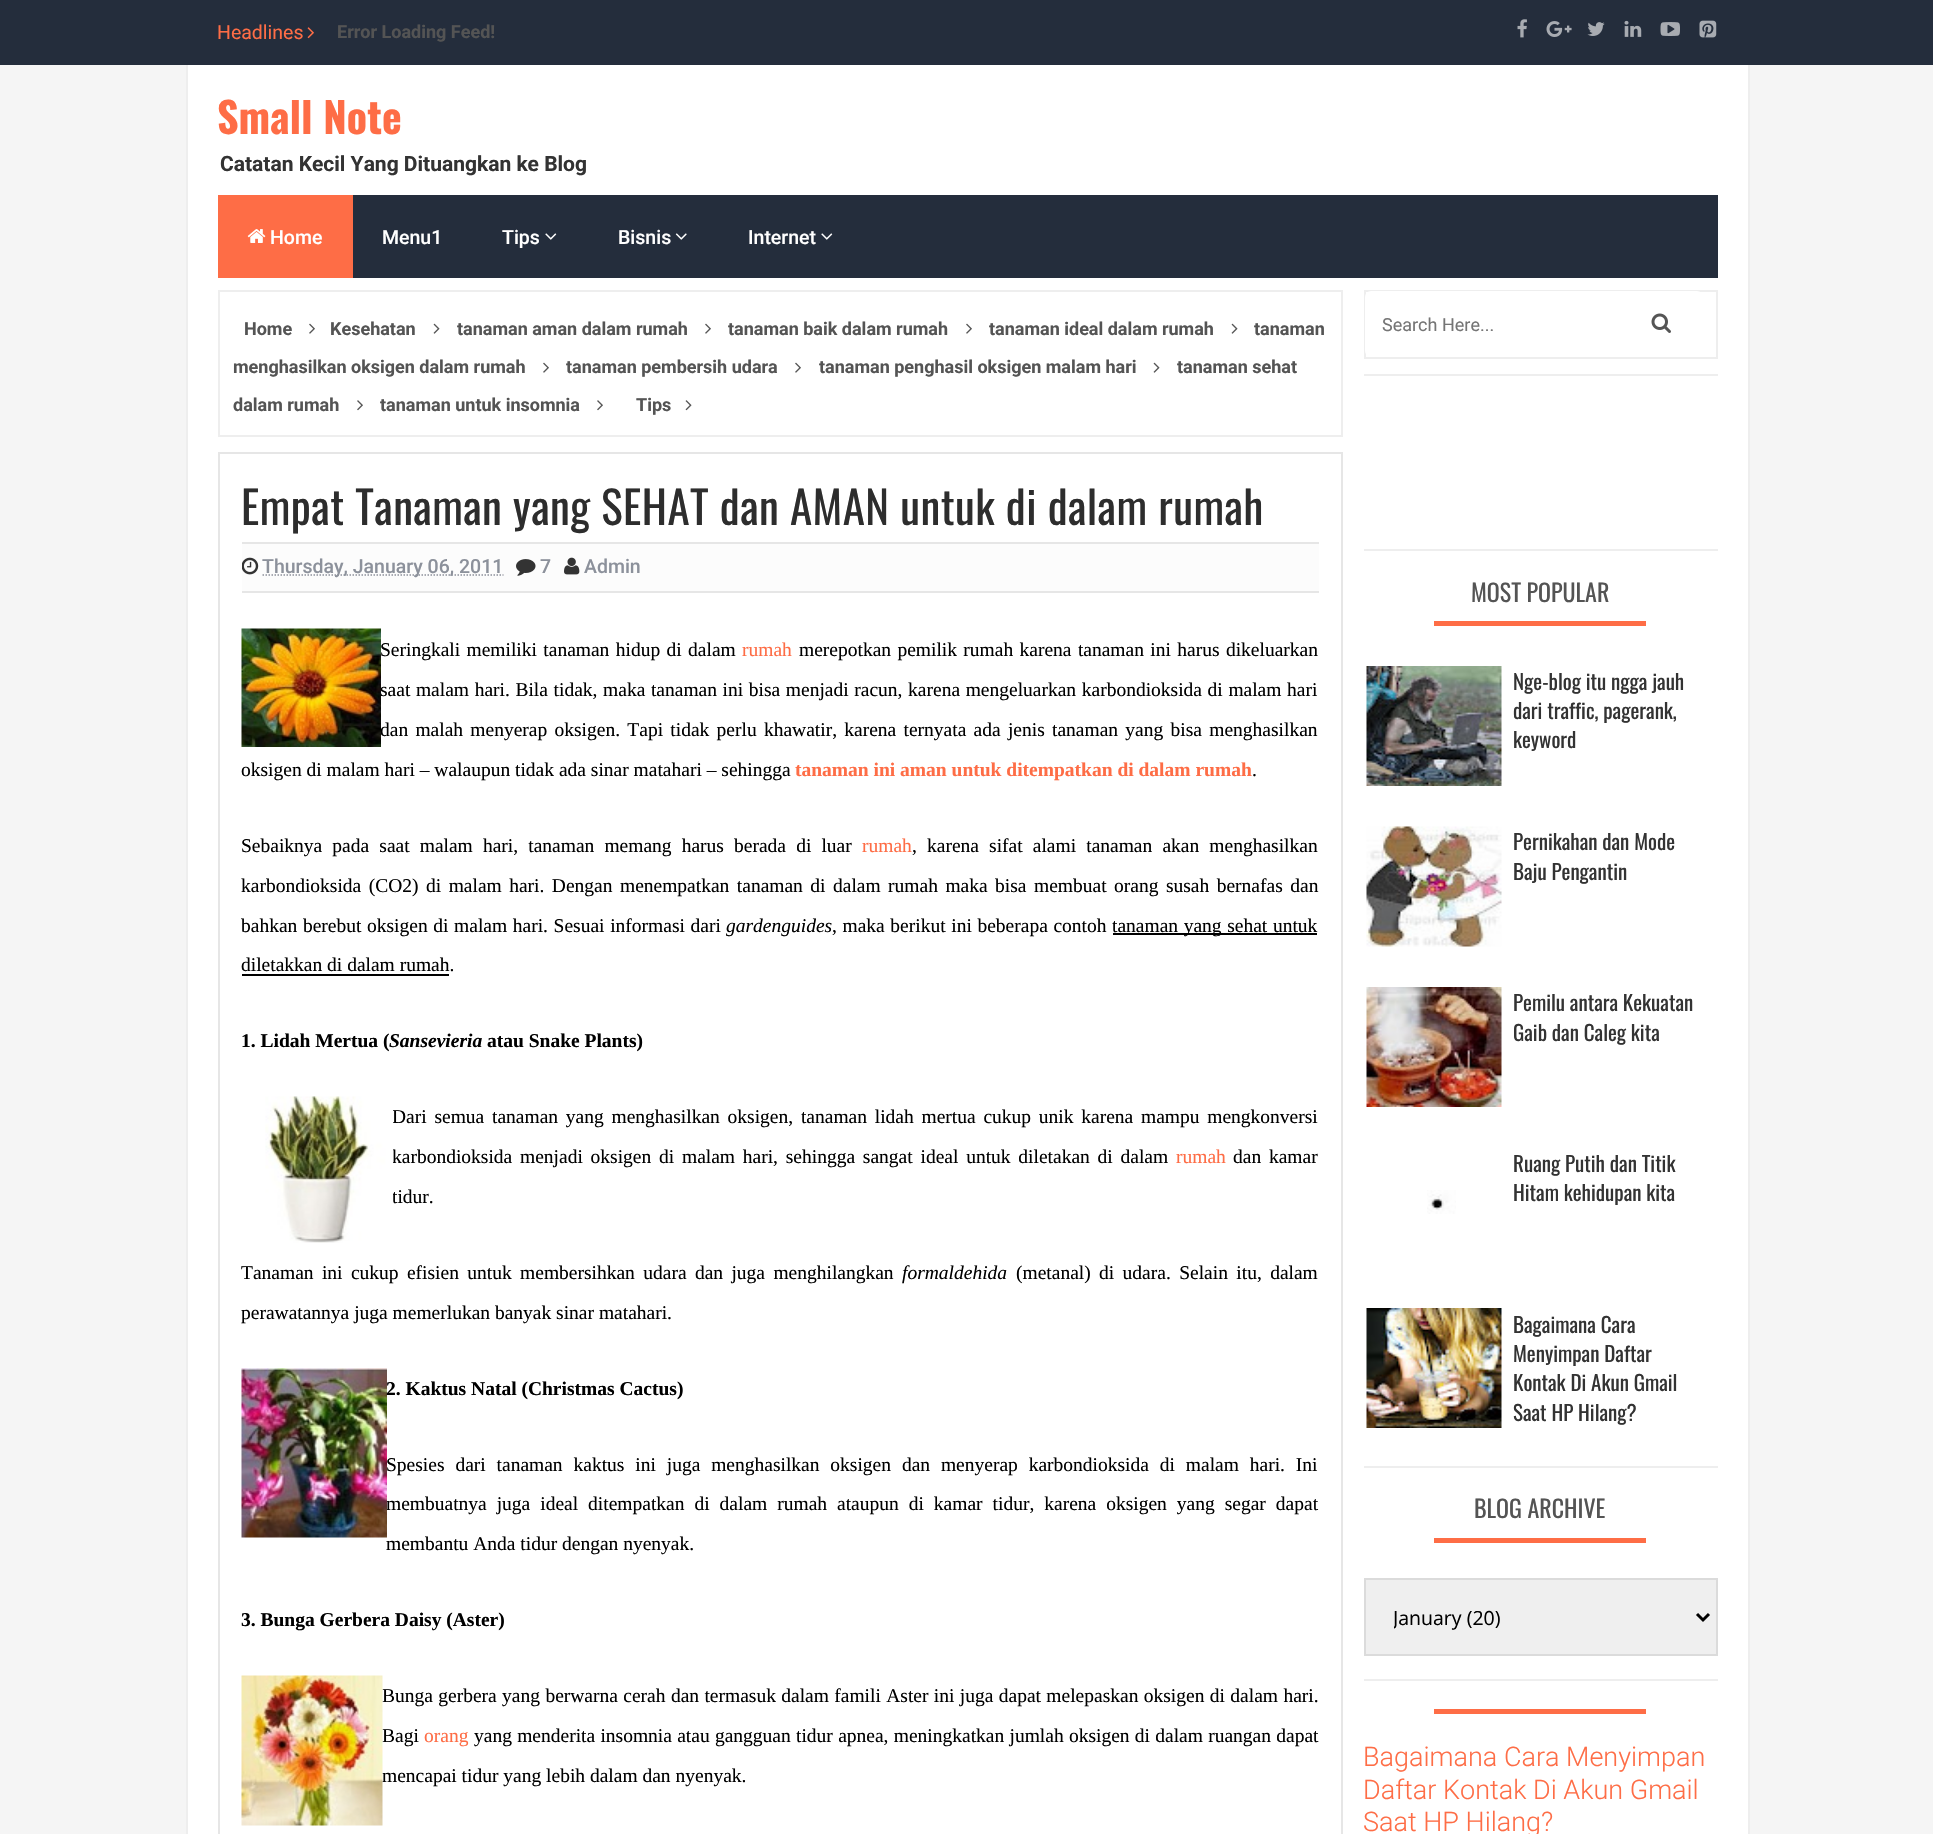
void draw(SkCanvas* canvas) {
    SkPaint paint;
    paint.setAntiAlias(true);
    auto spacedText = [&](const char* s, float x, float y, const SkFont& font, const SkPaint& ink, float letter, float word) {
        std::vector<SkGlyphID> glyphs(font.countText(s, strlen(s), SkTextEncoding::kUTF8));
        std::vector<float> xs(glyphs.size());
        font.textToGlyphs(s, strlen(s), SkTextEncoding::kUTF8, glyphs);
        font.getXPos(glyphs, xs, x);
        float extra = 0;
        for (size_t i = 0; i < glyphs.size(); i++) {
            xs[i] += extra;
            extra += letter + word * (glyphs[i] == font.unicharToGlyph(' '));
        }
        canvas->drawTextBlob(SkTextBlob::MakeFromPosHGlyphs(glyphs, xs, y, font), 0, 0, ink);
    };
    canvas->clear(0xFFF5F5F5);
    paint.setColor(0xFF242D3C);
    canvas->drawRect(SkRect::MakeXYWH(0, 0, 1933, 65), paint);
    SkFont font1(fontMgr->matchFamilyStyle("Roboto", SkFontStyle::Normal()), 19.5f);
    font1.setSubpixel(true);
    paint.setColor(0xFFFE6D46);
    canvas->drawString("Headlines", 217, 39, font1, paint);
    canvas->drawImageRect(SkImages::DeferredFromEncodedData(SkData::MakeFromFileName("img1.png")), SkRect::MakeXYWH(307, 27, 7, 12), SkSamplingOptions());
    SkFont font2(fontMgr->matchFamilyStyle("Roboto", SkFontStyle::Bold()), 18);
    font2.setSubpixel(true);
    paint.setColor(0xFF545454);
    canvas->drawString("Error Loading Feed!", 337, 38, font2, paint);
    canvas->drawImageRect(SkImages::DeferredFromEncodedData(SkData::MakeFromFileName("img2.png")), SkRect::MakeXYWH(1517, 19, 10, 19), SkSamplingOptions());
    canvas->drawImageRect(SkImages::DeferredFromEncodedData(SkData::MakeFromFileName("img3.png")), SkRect::MakeXYWH(1546, 21, 26, 16), SkSamplingOptions());
    canvas->drawImageRect(SkImages::DeferredFromEncodedData(SkData::MakeFromFileName("img4.png")), SkRect::MakeXYWH(1587, 22, 18, 14), SkSamplingOptions());
    canvas->drawImageRect(SkImages::DeferredFromEncodedData(SkData::MakeFromFileName("img5.png")), SkRect::MakeXYWH(1624, 20, 18, 17), SkSamplingOptions());
    canvas->drawImageRect(SkImages::DeferredFromEncodedData(SkData::MakeFromFileName("img6.png")), SkRect::MakeXYWH(1660, 22, 20, 14), SkSamplingOptions());
    canvas->drawImageRect(SkImages::DeferredFromEncodedData(SkData::MakeFromFileName("img7.png")), SkRect::MakeXYWH(1699, 20, 18, 18), SkSamplingOptions());
    paint.setColor(0xFFFFFFFF);
    canvas->drawRect(SkRect::MakeXYWH(188, 65, 1560, 1769), paint);
    paint.setColor(0xFFEEEEEE);
    canvas->drawRect(SkRect::MakeXYWH(1748, 65, 2, 1769), paint);
    canvas->drawRect(SkRect::MakeXYWH(186, 65, 2, 1769), paint);
    SkFont font3(fontMgr->matchFamilyStyle("Oswald", SkFontStyle::Bold()), 42);
    font3.setSubpixel(true);
    paint.setColor(0xFFFE6D46);
    canvas->drawString("Small Note", 217, 134, font3, paint);
    SkFont font4(fontMgr->matchFamilyStyle("Roboto", SkFontStyle::Bold()), 21);
    font4.setSubpixel(true);
    paint.setColor(0xFF333333);
    canvas->drawString("Catatan Kecil Yang Dituangkan ke Blog", 220, 171, font4, paint);
    paint.setColor(0xFF242D3C);
    canvas->drawRect(SkRect::MakeXYWH(353, 195, 1365, 83), paint);
    paint.setColor(0xFFFE6D46);
    canvas->drawRect(SkRect::MakeXYWH(218, 195, 135, 83), paint);
    canvas->drawImageRect(SkImages::DeferredFromEncodedData(SkData::MakeFromFileName("img8.png")), SkRect::MakeXYWH(247, 229, 19, 14), SkSamplingOptions());
    SkFont font5(fontMgr->matchFamilyStyle("Roboto", SkFontStyle(500, SkFontStyle::kNormal_Width, SkFontStyle::kUpright_Slant)), 19.5f);
    font5.setSubpixel(true);
    paint.setColor(0xFFFFFFFF);
    canvas->drawString("Home", 270, 244, font5, paint);
    canvas->drawString("Menu1", 382, 244, font5, paint);
    canvas->drawString("Tips", 502, 244, font5, paint);
    canvas->drawImageRect(SkImages::DeferredFromEncodedData(SkData::MakeFromFileName("img9.png")), SkRect::MakeXYWH(545, 233, 12, 7), SkSamplingOptions());
    canvas->drawString("Bisnis", 618, 244, font5, paint);
    canvas->drawImageRect(SkImages::DeferredFromEncodedData(SkData::MakeFromFileName("img10.png")), SkRect::MakeXYWH(675, 233, 12, 7), SkSamplingOptions());
    canvas->drawString("Internet", 748, 244, font5, paint);
    canvas->drawImageRect(SkImages::DeferredFromEncodedData(SkData::MakeFromFileName("img9.png")), SkRect::MakeXYWH(821, 233, 12, 7), SkSamplingOptions());
    paint.setStyle(SkPaint::kStroke_Style);
    paint.setStrokeWidth(2);
    paint.setColor(0xFFEEEEEE);
    canvas->drawRect(SkRect::MakeXYWH(219, 291, 1123, 145), paint);
    paint.setStyle(SkPaint::kFill_Style);
    paint.setColor(0xFF545454);
    canvas->drawString("Home", 244, 335, font2, paint);
    canvas->drawString("Kesehatan", 330, 335, font2, paint);
    canvas->drawImageRect(SkImages::DeferredFromEncodedData(SkData::MakeFromFileName("img11.png")), SkRect::MakeXYWH(433, 323, 7, 11), SkSamplingOptions());
    canvas->drawString("tanaman aman dalam rumah", 457, 335, font2, paint);
    canvas->drawImageRect(SkImages::DeferredFromEncodedData(SkData::MakeFromFileName("img12.png")), SkRect::MakeXYWH(705, 323, 6, 11), SkSamplingOptions());
    canvas->drawString("tanaman baik dalam rumah", 728, 335, font2, paint);
    canvas->drawImageRect(SkImages::DeferredFromEncodedData(SkData::MakeFromFileName("img12.png")), SkRect::MakeXYWH(966, 323, 6, 11), SkSamplingOptions());
    canvas->drawString("tanaman ideal dalam rumah", 989, 335, font2, paint);
    canvas->drawImageRect(SkImages::DeferredFromEncodedData(SkData::MakeFromFileName("img11.png")), SkRect::MakeXYWH(1231, 323, 7, 11), SkSamplingOptions());
    canvas->drawString("tanaman", 1254, 335, font2, paint);
    canvas->drawString("menghasilkan oksigen dalam rumah", 233, 373, font2, paint);
    canvas->drawImageRect(SkImages::DeferredFromEncodedData(SkData::MakeFromFileName("img12.png")), SkRect::MakeXYWH(543, 362, 6, 11), SkSamplingOptions());
    canvas->drawImageRect(SkImages::DeferredFromEncodedData(SkData::MakeFromFileName("img12.png")), SkRect::MakeXYWH(309, 323, 6, 11), SkSamplingOptions());
    canvas->drawString("tanaman sehat", 1177, 373, font2, paint);
    canvas->drawString("dalam rumah", 233, 411, font2, paint);
    canvas->drawImageRect(SkImages::DeferredFromEncodedData(SkData::MakeFromFileName("img13.png")), SkRect::MakeXYWH(357, 400, 6, 11), SkSamplingOptions());
    canvas->drawString("tanaman pembersih udara", 566, 373, font2, paint);
    canvas->drawImageRect(SkImages::DeferredFromEncodedData(SkData::MakeFromFileName("img12.png")), SkRect::MakeXYWH(795, 362, 6, 11), SkSamplingOptions());
    canvas->drawString("tanaman penghasil oksigen malam hari", 819, 373, font2, paint);
    canvas->drawImageRect(SkImages::DeferredFromEncodedData(SkData::MakeFromFileName("img11.png")), SkRect::MakeXYWH(1153, 362, 7, 11), SkSamplingOptions());
    canvas->drawString("tanaman untuk insomnia", 380, 411, font2, paint);
    canvas->drawImageRect(SkImages::DeferredFromEncodedData(SkData::MakeFromFileName("img13.png")), SkRect::MakeXYWH(597, 400, 6, 11), SkSamplingOptions());
    canvas->drawString("Tips", 636, 411, font2, paint);
    canvas->drawImageRect(SkImages::DeferredFromEncodedData(SkData::MakeFromFileName("img14.png")), SkRect::MakeXYWH(685, 400, 7, 11), SkSamplingOptions());
    paint.setStyle(SkPaint::kStroke_Style);
    paint.setColor(0xFFE6E6E6);
    canvas->drawRect(SkRect::MakeXYWH(219, 453, 1123, 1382), paint);
    SkFont font6(fontMgr->matchFamilyStyle("Oswald", SkFontStyle::Normal()), 45);
    font6.setSubpixel(true);
    paint.setStyle(SkPaint::kFill_Style);
    paint.setColor(0xFF2D2D2D);
    spacedText("Empat Tanaman yang SEHAT dan AMAN untuk di dalam rumah", 241, 525, font6, paint, 0.45f, 0);
    paint.setColor(0xFFFCFCFC);
    canvas->drawRect(SkRect::MakeXYWH(242, 544, 1077, 47), paint);
    paint.setColor(0xFFE6E6E6);
    canvas->drawRect(SkRect::MakeXYWH(242, 542, 1077, 2), paint);
    canvas->drawRect(SkRect::MakeXYWH(242, 591, 1077, 2), paint);
    canvas->drawImageRect(SkImages::DeferredFromEncodedData(SkData::MakeFromFileName("img15.png")), SkRect::MakeXYWH(242, 557, 17, 18), SkSamplingOptions());
    paint.setStyle(SkPaint::kStroke_Style);
    paint.setStrokeWidth(1.5f);
    paint.setColor(0xFF8C919B);
    paint.setPathEffect(SkDashPathEffect::Make({{1.5f, 1.5f}}, 0));
    canvas->drawPath(SkPathBuilder().moveTo(262.5f, 575).lineTo(503.5f, 575).detach(), paint);
    paint.setPathEffect(nullptr);
    paint.setStyle(SkPaint::kFill_Style);
    canvas->drawString("Thursday, January 06, 2011", 262, 573, font5, paint);
    canvas->drawImageRect(SkImages::DeferredFromEncodedData(SkData::MakeFromFileName("img16.png")), SkRect::MakeXYWH(516, 559, 20, 17), SkSamplingOptions());
    canvas->drawString("7", 540, 573, font5, paint);
    canvas->drawImageRect(SkImages::DeferredFromEncodedData(SkData::MakeFromFileName("img17.png")), SkRect::MakeXYWH(564, 557, 16, 18), SkSamplingOptions());
    canvas->drawString("Admin", 584, 573, font5, paint);
    SkFont font7(fontMgr->matchFamilyStyle("Liberation Serif", SkFontStyle::Normal()), 19.5f);
    font7.setSubpixel(true);
    paint.setColor(0xFF000000);
    spacedText("dan malah menyerap oksigen. Tapi tidak perlu khawatir, karena ternyata ada jenis tanaman yang bisa menghasilkan", 380, 736, font7, paint, 0, 2.4f);
    canvas->drawImageRect(SkImages::DeferredFromEncodedData(SkData::MakeFromFileName("img18.png")), SkRect::MakeXYWH(241, 628, 140, 119), SkSamplingOptions());
    spacedText("Seringkali memiliki tanaman hidup di dalam", 380, 656, font7, paint, 0, 1.5f);
    paint.setColor(0xFFFE6D46);
    canvas->drawString("rumah", 742, 656, font7, paint);
    paint.setColor(0xFF000000);
    spacedText("merepotkan pemilik rumah karena tanaman ini harus dikeluarkan", 799, 656, font7, paint, 0, 1.5f);
    spacedText("saat malam hari. Bila tidak, maka tanaman ini bisa menjadi racun, karena mengeluarkan karbondioksida di malam hari", 380, 696, font7, paint, 0, 0.75f);
    canvas->drawString("oksigen di malam hari – walaupun tidak ada sinar matahari – sehingga", 241, 776, font7, paint);
    SkFont font8(fontMgr->matchFamilyStyle("Liberation Serif", SkFontStyle::Bold()), 19.5f);
    font8.setSubpixel(true);
    paint.setColor(0xFFFE6D46);
    canvas->drawString("tanaman ini aman untuk ditempatkan di dalam rumah", 795, 776, font8, paint);
    paint.setColor(0xFF000000);
    canvas->drawString(".", 1252, 776, font7, paint);
    spacedText("Sebaiknya pada saat malam hari, tanaman memang harus berada di luar", 241, 852, font7, paint, 0, 5.25f);
    paint.setColor(0xFFFE6D46);
    canvas->drawString("rumah", 862, 852, font7, paint);
    paint.setColor(0xFF000000);
    spacedText(", karena sifat alami tanaman akan menghasilkan", 912, 852, font7, paint, 0, 5.25f);
    spacedText("karbondioksida (CO2) di malam hari. Dengan menempatkan tanaman di dalam rumah maka bisa membuat orang susah bernafas dan", 241, 892, font7, paint, 0, 2.6f);
    spacedText("bahkan berebut oksigen di malam hari. Sesuai informasi dari", 241, 932, font7, paint, 0, 0.75f);
    SkFont font9(fontMgr->matchFamilyStyle("Liberation Serif", SkFontStyle::Italic()), 19.5f);
    font9.setSubpixel(true);
    canvas->drawString("gardenguides", 726, 932, font9, paint);
    spacedText(", maka berikut ini beberapa contoh", 832, 932, font7, paint, 0, 0.75f);
    canvas->drawRect(SkRect::MakeXYWH(1113, 933, 204, 2), paint);
    spacedText("tanaman yang sehat untuk", 1112, 932, font7, paint, 0, 0.75f);
    canvas->drawString("diletakkan di dalam rumah.", 241, 971, font7, paint);
    canvas->drawRect(SkRect::MakeXYWH(242, 974, 207, 2), paint);
    canvas->drawString("1. Lidah Mertua (", 241, 1047, font8, paint);
    SkFont font10(fontMgr->matchFamilyStyle("Liberation Serif", SkFontStyle::BoldItalic()), 19.5f);
    font10.setSubpixel(true);
    canvas->drawString("Sansevieria", 389, 1047, font10, paint);
    canvas->drawString("atau Snake Plants)", 487, 1047, font8, paint);
    spacedText("Dari semua tanaman yang menghasilkan oksigen, tanaman lidah mertua cukup unik karena mampu mengkonversi", 392, 1123, font7, paint, 0, 2.9f);
    spacedText("karbondioksida menjadi oksigen di malam hari, sehingga sangat ideal untuk diletakan di dalam", 392, 1163, font7, paint, 0, 2.9f);
    canvas->drawString("tidur.", 392, 1203, font7, paint);
    canvas->drawImageRect(SkImages::DeferredFromEncodedData(SkData::MakeFromFileName("img19.png")), SkRect::MakeXYWH(265, 1096, 128, 147), SkSamplingOptions());
    paint.setColor(0xFFFE6D46);
    canvas->drawString("rumah", 1176, 1163, font7, paint);
    paint.setColor(0xFF000000);
    spacedText("dan kamar", 1233, 1163, font7, paint, 0, 2.9f);
    spacedText("Tanaman ini cukup efisien untuk membersihkan udara dan juga menghilangkan", 241, 1279, font7, paint, 0, 3.5f);
    canvas->drawString("formaldehida", 902, 1279, font9, paint);
    spacedText("(metanal) di udara. Selain itu, dalam", 1016, 1279, font7, paint, 0, 3.5f);
    canvas->drawString("perawatannya juga memerlukan banyak sinar matahari.", 241, 1319, font7, paint);
    spacedText("membuatnya juga ideal ditempatkan di dalam rumah ataupun di kamar tidur, karena oksigen yang segar dapat", 386, 1510, font7, paint, 0, 5.1f);
    canvas->drawString("membantu Anda tidur dengan nyenyak.", 386, 1550, font7, paint);
    canvas->drawImageRect(SkImages::DeferredFromEncodedData(SkData::MakeFromFileName("img20.png")), SkRect::MakeXYWH(241, 1368, 146, 170), SkSamplingOptions());
    canvas->drawString("2. Kaktus Natal (Christmas Cactus)", 386, 1395, font8, paint);
    spacedText("Spesies dari tanaman kaktus ini juga menghasilkan oksigen dan menyerap karbondioksida di malam hari. Ini", 386, 1471, font7, paint, 0, 6);
    canvas->drawString("3. Bunga Gerbera Daisy (Aster)", 241, 1626, font8, paint);
    spacedText("Bunga gerbera yang berwarna cerah dan termasuk dalam famili Aster ini juga dapat melepaskan oksigen di dalam hari.", 382, 1702, font7, paint, 0, 0.5f);
    canvas->drawString("Bagi", 382, 1742, font7, paint);
    canvas->drawString("mencapai tidur yang lebih dalam dan nyenyak.", 382, 1782, font7, paint);
    canvas->drawImageRect(SkImages::DeferredFromEncodedData(SkData::MakeFromFileName("img21.png")), SkRect::MakeXYWH(241, 1675, 142, 151), SkSamplingOptions());
    paint.setColor(0xFFFE6D46);
    canvas->drawString("orang", 424, 1742, font7, paint);
    paint.setColor(0xFF000000);
    spacedText("yang menderita insomnia atau gangguan tidur apnea, meningkatkan jumlah oksigen di dalam ruangan dapat", 474, 1742, font7, paint, 0, 0.4f);
    paint.setColor(0xFFEEEEEE);
    canvas->drawRect(SkRect::MakeXYWH(1364, 374, 354, 2), paint);
    paint.setStyle(SkPaint::kStroke_Style);
    paint.setStrokeWidth(2);
    canvas->drawRect(SkRect::MakeXYWH(1365, 291, 352, 67), paint);
    paint.setStyle(SkPaint::kFill_Style);
    paint.setColor(0xFFFFFFFF);
    canvas->drawRoundRect(SkRect::MakeXYWH(1365, 291, 338, 66), 6, 6, paint);
    SkFont font11(fontMgr->matchFamilyStyle("Roboto", SkFontStyle::Normal()), 18);
    font11.setSubpixel(true);
    paint.setColor(0xFF757575);
    canvas->drawString("Search Here...", 1382, 331, font11, paint);
    canvas->drawImageRect(SkImages::DeferredFromEncodedData(SkData::MakeFromFileName("img22.png")), SkRect::MakeXYWH(1651, 313, 20, 20), SkSamplingOptions());
    paint.setColor(0xFFEEEEEE);
    canvas->drawRect(SkRect::MakeXYWH(1364, 549, 354, 2), paint);
    canvas->drawRect(SkRect::MakeXYWH(1364, 1466, 354, 2), paint);
    SkFont font12(fontMgr->matchFamilyStyle("Oswald", SkFontStyle::Normal()), 24);
    font12.setSubpixel(true);
    paint.setColor(0xFF545454);
    canvas->drawString("MOST POPULAR", 1471, 602, font12, paint);
    paint.setColor(0xFFFE6D46);
    canvas->drawRect(SkRect::MakeXYWH(1434, 621, 212, 5), paint);
    canvas->drawImageRect(SkImages::DeferredFromEncodedData(SkData::MakeFromFileName("img23.png")), SkRect::MakeXYWH(1366, 666, 136, 120), SkSamplingOptions());
    SkFont font13(fontMgr->matchFamilyStyle("Oswald", SkFontStyle::Normal()), 21);
    font13.setSubpixel(true);
    paint.setColor(0xFF333333);
    canvas->drawString("Nge-blog itu ngga jauh", 1513, 690, font13, paint);
    canvas->drawString("dari traffic, pagerank,", 1513, 719, font13, paint);
    canvas->drawString("keyword", 1513, 748, font13, paint);
    canvas->drawImageRect(SkImages::DeferredFromEncodedData(SkData::MakeFromFileName("img24.png")), SkRect::MakeXYWH(1366, 826, 136, 121), SkSamplingOptions());
    canvas->drawString("Pernikahan dan Mode", 1513, 850, font13, paint);
    canvas->drawString("Baju Pengantin", 1513, 880, font13, paint);
    canvas->drawImageRect(SkImages::DeferredFromEncodedData(SkData::MakeFromFileName("img25.png")), SkRect::MakeXYWH(1366, 987, 136, 120), SkSamplingOptions());
    canvas->drawString("Pemilu antara Kekuatan", 1513, 1011, font13, paint);
    canvas->drawString("Gaib dan Caleg kita", 1513, 1041, font13, paint);
    canvas->drawImageRect(SkImages::DeferredFromEncodedData(SkData::MakeFromFileName("img26.png")), SkRect::MakeXYWH(1427, 1190, 29, 24), SkSamplingOptions());
    canvas->drawString("Ruang Putih dan Titik", 1513, 1172, font13, paint);
    canvas->drawString("Hitam kehidupan kita", 1513, 1201, font13, paint);
    canvas->drawImageRect(SkImages::DeferredFromEncodedData(SkData::MakeFromFileName("img27.png")), SkRect::MakeXYWH(1366, 1308, 136, 120), SkSamplingOptions());
    canvas->drawString("Bagaimana Cara", 1513, 1333, font13, paint);
    canvas->drawString("Menyimpan Daftar", 1513, 1362, font13, paint);
    canvas->drawString("Kontak Di Akun Gmail", 1513, 1391, font13, paint);
    canvas->drawString("Saat HP Hilang?", 1513, 1421, font13, paint);
    paint.setColor(0xFFEEEEEE);
    canvas->drawRect(SkRect::MakeXYWH(1364, 1679, 354, 2), paint);
    paint.setColor(0xFF545454);
    canvas->drawString("BLOG ARCHIVE", 1474, 1518, font12, paint);
    paint.setColor(0xFFFE6D46);
    canvas->drawRect(SkRect::MakeXYWH(1434, 1538, 212, 5), paint);
    paint.setColor(0xFFEFEFEF);
    canvas->drawRect(SkRect::MakeXYWH(1365, 1579, 352, 76), paint);
    paint.setStyle(SkPaint::kStroke_Style);
    paint.setColor(0xFFDBDBDB);
    canvas->drawRect(SkRect::MakeXYWH(1365, 1579, 352, 76), paint);
    paint.setStrokeWidth(3);
    paint.setColor(0xFF000000);
    canvas->drawPath(SkPathBuilder().moveTo(1697, 1614).lineTo(1703, 1620).lineTo(1709, 1614).detach(), paint);
    canvas->save();
    canvas->clipRect(SkRect::MakeXYWH(1394, 1602, 276, 30));
    SkFont font14(fontMgr->matchFamilyStyle("Open Sans", SkFontStyle::Normal()), 19.5f);
    font14.setSubpixel(true);
    paint.setStyle(SkPaint::kFill_Style);
    canvas->drawString("January (20)", 1393, 1625, font14, paint);
    canvas->restore();
    paint.setColor(0xFFFE6D46);
    canvas->drawRect(SkRect::MakeXYWH(1434, 1709, 212, 5), paint);
    SkFont font15(fontMgr->matchFamilyStyle("Roboto", SkFontStyle(300, SkFontStyle::kNormal_Width, SkFontStyle::kUpright_Slant)), 27);
    font15.setSubpixel(true);
    canvas->drawString("Bagaimana Cara Menyimpan", 1363, 1766, font15, paint);
    canvas->drawString("Daftar Kontak Di Akun Gmail", 1363, 1799, font15, paint);
    canvas->drawString("Saat HP Hilang?", 1363, 1831, font15, paint);
}
